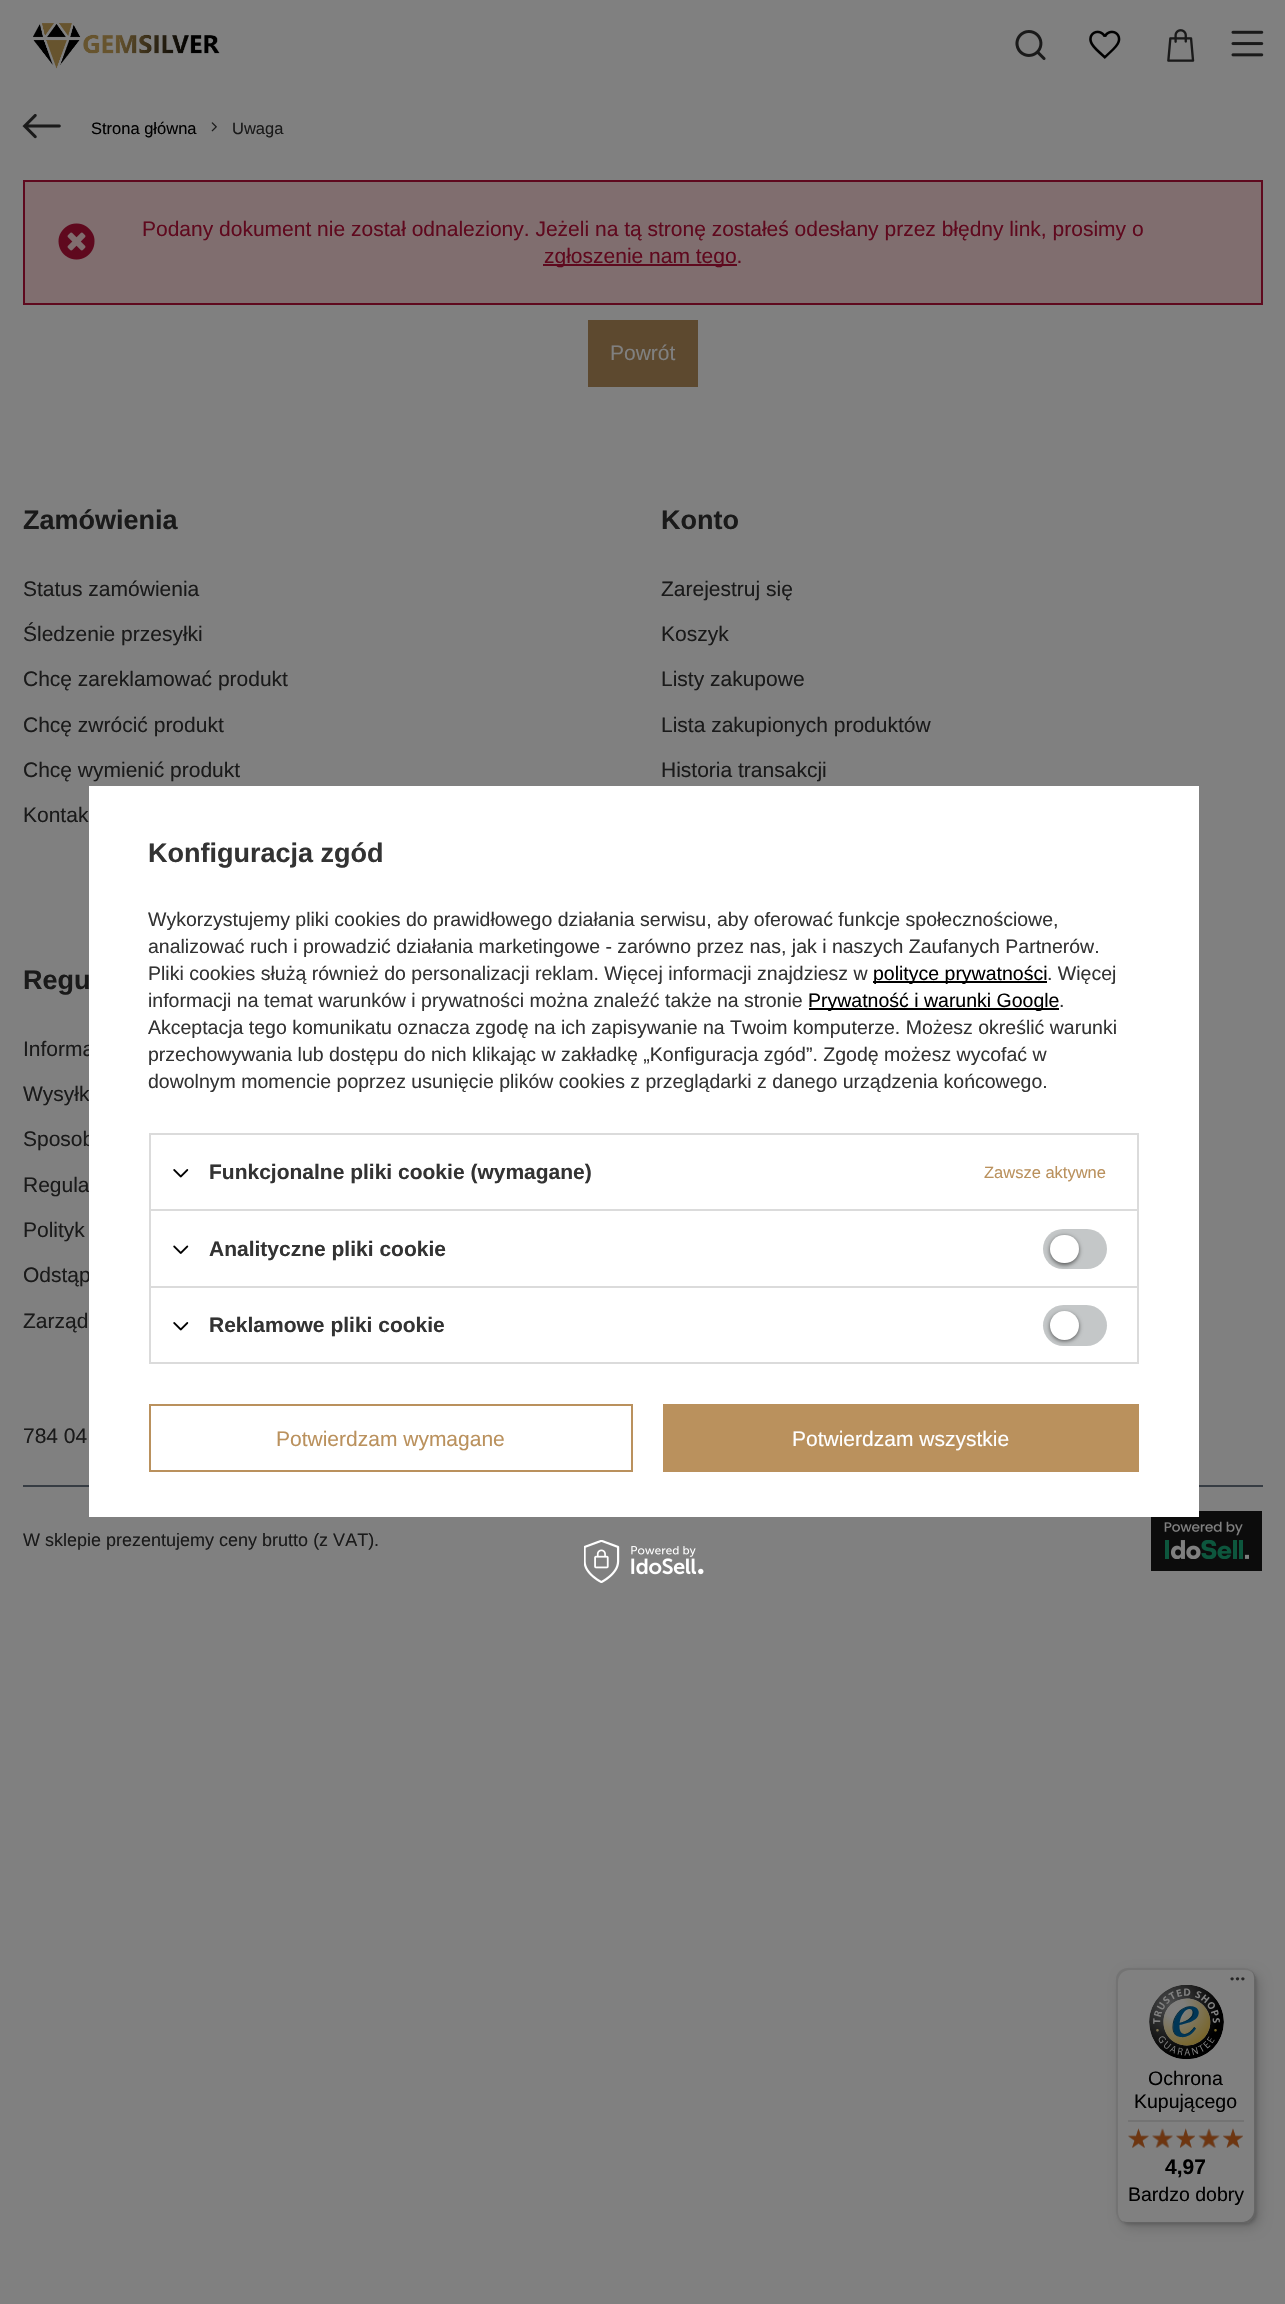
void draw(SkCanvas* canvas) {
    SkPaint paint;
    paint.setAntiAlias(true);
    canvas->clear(0xFF808080);
    canvas->drawImageRect(SkImages::DeferredFromEncodedData(SkData::MakeFromFileName("img1.png")), SkRect::MakeXYWH(33, 23, 187, 46), SkSamplingOptions());
    canvas->drawImageRect(SkImages::DeferredFromEncodedData(SkData::MakeFromFileName("img2.png")), SkRect::MakeXYWH(1015, 30, 31, 31), SkSamplingOptions());
    canvas->drawImageRect(SkImages::DeferredFromEncodedData(SkData::MakeFromFileName("img3.png")), SkRect::MakeXYWH(1089, 30, 32, 29), SkSamplingOptions());
    canvas->drawImageRect(SkImages::DeferredFromEncodedData(SkData::MakeFromFileName("img4.png")), SkRect::MakeXYWH(1167, 29, 28, 33), SkSamplingOptions());
    canvas->drawImageRect(SkImages::DeferredFromEncodedData(SkData::MakeFromFileName("img5.png")), SkRect::MakeXYWH(1231, 30, 33, 27), SkSamplingOptions());
    canvas->drawImageRect(SkImages::DeferredFromEncodedData(SkData::MakeFromFileName("img6.png")), SkRect::MakeXYWH(22, 114, 39, 25), SkSamplingOptions());
    SkFont font1(fontMgr->matchFamilyStyle("Liberation Sans", SkFontStyle::Normal()), 16.5f);
    font1.setSubpixel(true);
    paint.setColor(0xFF000000);
    canvas->drawString("Strona główna", 91, 134, font1, paint);
    canvas->drawImageRect(SkImages::DeferredFromEncodedData(SkData::MakeFromFileName("img7.png")), SkRect::MakeXYWH(211, 122, 6, 10), SkSamplingOptions());
    paint.setColor(0xFF1A1A1A);
    canvas->drawString("Uwaga", 232, 134, font1, paint);
    paint.setColor(0xFF806E6F);
    canvas->drawRect(SkRect::MakeXYWH(24, 181, 1238, 123), paint);
    paint.setStyle(SkPaint::kStroke_Style);
    paint.setStrokeWidth(2);
    paint.setColor(0xFF5F091E);
    canvas->drawRect(SkRect::MakeXYWH(24, 181, 1238, 123), paint);
    canvas->drawImageRect(SkImages::DeferredFromEncodedData(SkData::MakeFromFileName("img8.png")), SkRect::MakeXYWH(58, 223, 37, 37), SkSamplingOptions());
    SkFont font2(fontMgr->matchFamilyStyle("Liberation Sans", SkFontStyle::Normal()), 21);
    font2.setSubpixel(true);
    paint.setStyle(SkPaint::kFill_Style);
    canvas->drawString("Podany dokument nie został odnaleziony. Jeżeli na tą stronę zostałeś odesłany przez błędny link, prosimy o", 142, 236, font2, paint);
    canvas->drawRect(SkRect::MakeXYWH(543, 264, 194, 2), paint);
    canvas->drawString("zgłoszenie nam tego.", 544, 263, font2, paint);
    paint.setColor(0xFF5D492F);
    canvas->drawRect(SkRect::MakeXYWH(588, 320, 110, 67), paint);
    paint.setColor(0xFF808080);
    canvas->drawString("Powrót", 610, 360, font2, paint);
    SkFont font3(fontMgr->matchFamilyStyle("Liberation Sans", SkFontStyle::Bold()), 27);
    font3.setSubpixel(true);
    paint.setColor(0xFF1A1A1A);
    canvas->drawString("Zamówienia", 23, 529, font3, paint);
    canvas->drawString("Status zamówienia", 23, 596, font2, paint);
    canvas->drawString("Śledzenie przesyłki", 23, 641, font2, paint);
    canvas->drawString("Chcę zareklamować produkt", 23, 686, font2, paint);
    canvas->drawString("Chcę zwrócić produkt", 23, 732, font2, paint);
    canvas->drawString("Chcę wymienić produkt", 23, 777, font2, paint);
    canvas->drawString("Kontak", 23, 822, font2, paint);
    canvas->drawString("Konto", 661, 529, font3, paint);
    canvas->drawString("Zarejestruj się", 661, 596, font2, paint);
    canvas->drawString("Koszyk", 661, 641, font2, paint);
    canvas->drawString("Listy zakupowe", 661, 686, font2, paint);
    canvas->drawString("Lista zakupionych produktów", 661, 732, font2, paint);
    canvas->drawString("Historia transakcji", 661, 777, font2, paint);
    canvas->drawString("Regu", 23, 989, font3, paint);
    canvas->drawString("Informa", 23, 1056, font2, paint);
    canvas->drawString("Wysyłk", 23, 1101, font2, paint);
    canvas->drawString("Sposob", 23, 1146, font2, paint);
    canvas->drawString("Regula", 23, 1192, font2, paint);
    canvas->drawString("Polityk", 23, 1237, font2, paint);
    canvas->drawString("Odstąp", 23, 1282, font2, paint);
    canvas->drawString("Zarząd", 23, 1328, font2, paint);
    paint.setColor(0xFF363C43);
    canvas->drawRect(SkRect::MakeXYWH(23, 1485, 1240, 2), paint);
    paint.setColor(0xFF1A1A1A);
    canvas->drawString("784 04", 23, 1443, font2, paint);
    SkFont font4(fontMgr->matchFamilyStyle("Liberation Sans", SkFontStyle::Normal()), 18);
    font4.setSubpixel(true);
    canvas->drawString("W sklepie prezentujemy ceny brutto (z VAT).", 23, 1546, font4, paint);
    canvas->drawImageRect(SkImages::DeferredFromEncodedData(SkData::MakeFromFileName("img9.png")), SkRect::MakeXYWH(1151, 1511, 111, 60), SkSamplingOptions());
    paint.setColor(0xFFFFFFFF);
    canvas->drawRect(SkRect::MakeXYWH(89, 786, 1110, 731), paint);
    paint.setColor(0xFF333333);
    canvas->drawString("Konfiguracja zgód", 148, 862, font3, paint);
    SkFont font5(fontMgr->matchFamilyStyle("Liberation Sans", SkFontStyle::Normal()), 19.5f);
    font5.setSubpixel(true);
    canvas->drawString("Wykorzystujemy pliki cookies do prawidłowego działania serwisu, aby oferować funkcje społecznościowe,", 148, 926, font5, paint);
    canvas->drawString("analizować ruch i prowadzić działania marketingowe - zarówno przez nas, jak i naszych Zaufanych Partnerów.", 148, 953, font5, paint);
    canvas->drawString("Pliki cookies służą również do personalizacji reklam. Więcej informacji znajdziesz w", 148, 980, font5, paint);
    paint.setColor(0xFF000000);
    canvas->drawRect(SkRect::MakeXYWH(873, 981, 174, 2), paint);
    canvas->drawString("polityce prywatności", 873, 980, font5, paint);
    paint.setColor(0xFF333333);
    canvas->drawString(". Więcej", 1047, 980, font5, paint);
    canvas->drawString("informacji na temat warunków i prywatności można znaleźć także na stronie", 148, 1007, font5, paint);
    paint.setColor(0xFF000000);
    canvas->drawRect(SkRect::MakeXYWH(809, 1008, 250, 2), paint);
    canvas->drawString("Prywatność i warunki Google", 808, 1007, font5, paint);
    paint.setColor(0xFF333333);
    canvas->drawString(".", 1059, 1007, font5, paint);
    canvas->drawString("Akceptacja tego komunikatu oznacza zgodę na ich zapisywanie na Twoim komputerze. Możesz określić warunki", 148, 1034, font5, paint);
    canvas->drawString("przechowywania lub dostępu do nich klikając w zakładkę „Konfiguracja zgód”. Zgodę możesz wycofać w", 148, 1061, font5, paint);
    canvas->drawString("dowolnym momencie poprzez usunięcie plików cookies z przeglądarki z danego urządzenia końcowego.", 148, 1088, font5, paint);
    paint.setColor(0xFFDBDBDB);
    canvas->drawRect(SkRect::MakeXYWH(149, 1133, 990, 2), paint);
    canvas->drawRect(SkRect::MakeXYWH(1137, 1133, 2, 76), paint);
    canvas->drawRect(SkRect::MakeXYWH(149, 1133, 2, 76), paint);
    canvas->drawImageRect(SkImages::DeferredFromEncodedData(SkData::MakeFromFileName("img10.png")), SkRect::MakeXYWH(173, 1169, 16, 9), SkSamplingOptions());
    SkFont font6(fontMgr->matchFamilyStyle("Liberation Sans", SkFontStyle::Bold()), 21);
    font6.setSubpixel(true);
    paint.setColor(0xFF333333);
    canvas->drawString("Funkcjonalne pliki cookie (wymagane)", 209, 1179, font6, paint);
    paint.setColor(0xFFBA915D);
    canvas->drawString("Zawsze aktywne", 984, 1178, font1, paint);
    paint.setColor(0xFFDBDBDB);
    canvas->drawRect(SkRect::MakeXYWH(149, 1209, 990, 2), paint);
    canvas->drawRect(SkRect::MakeXYWH(1137, 1209, 2, 77), paint);
    canvas->drawRect(SkRect::MakeXYWH(149, 1209, 2, 77), paint);
    canvas->drawImageRect(SkImages::DeferredFromEncodedData(SkData::MakeFromFileName("img11.png")), SkRect::MakeXYWH(173, 1245, 16, 9), SkSamplingOptions());
    paint.setColor(0xFF333333);
    canvas->drawString("Analityczne pliki cookie", 209, 1256, font6, paint);
    paint.setColor(0xFFC4C7C8);
    canvas->drawRoundRect(SkRect::MakeXYWH(1043, 1229, 64, 40), 20, 20, paint);
    paint.setColor(0x8F000000);
    paint.setMaskFilter(SkMaskFilter::MakeBlur(kNormal_SkBlurStyle, 2));
    canvas->drawRoundRect(SkRect::MakeXYWH(1050, 1236, 29, 29), 14.5f, 14.5f, paint);
    paint.setMaskFilter(nullptr);
    paint.setColor(0xFFFFFFFF);
    canvas->drawRoundRect(SkRect::MakeXYWH(1050, 1235, 29, 28), 14, 14, paint);
    paint.setStyle(SkPaint::kStroke_Style);
    paint.setColor(0xFFDBDBDB);
    canvas->drawRect(SkRect::MakeXYWH(150, 1287, 988, 76), paint);
    canvas->drawImageRect(SkImages::DeferredFromEncodedData(SkData::MakeFromFileName("img10.png")), SkRect::MakeXYWH(173, 1322, 16, 9), SkSamplingOptions());
    paint.setStyle(SkPaint::kFill_Style);
    paint.setColor(0xFF333333);
    canvas->drawString("Reklamowe pliki cookie", 209, 1332, font6, paint);
    paint.setColor(0xFFC4C7C8);
    canvas->drawRoundRect(SkRect::MakeXYWH(1043, 1305, 64, 41), 20.5f, 20.5f, paint);
    paint.setColor(0x8F000000);
    paint.setMaskFilter(SkMaskFilter::MakeBlur(kNormal_SkBlurStyle, 2));
    canvas->drawRoundRect(SkRect::MakeXYWH(1050, 1313, 29, 28), 14, 14, paint);
    paint.setMaskFilter(nullptr);
    paint.setColor(0xFFFFFFFF);
    canvas->drawCircle(1064.5f, 1325.5f, 14.5f, paint);
    paint.setStyle(SkPaint::kStroke_Style);
    paint.setColor(0xFFBA915D);
    canvas->drawRect(SkRect::MakeXYWH(150, 1405, 482, 66), paint);
    paint.setStyle(SkPaint::kFill_Style);
    canvas->drawString("Potwierdzam wymagane", 276, 1446, font2, paint);
    canvas->drawRect(SkRect::MakeXYWH(663, 1404, 476, 68), paint);
    paint.setColor(0xFFFFFFFF);
    canvas->drawString("Potwierdzam wszystkie", 792, 1446, font2, paint);
    canvas->drawImageRect(SkImages::DeferredFromEncodedData(SkData::MakeFromFileName("img12.png")), SkRect::MakeXYWH(584, 1540, 120, 43), SkSamplingOptions());
    paint.setColor(0x26000000);
    paint.setMaskFilter(SkMaskFilter::MakeBlur(kNormal_SkBlurStyle, 6));
    canvas->drawRoundRect(SkRect::MakeXYWH(1121, 1973, 139, 255), 12, 12, paint);
    paint.setMaskFilter(nullptr);
    paint.setMaskFilter(SkMaskFilter::MakeBlur(kNormal_SkBlurStyle, 1.5f));
    canvas->drawRoundRect(SkRect::MakeXYWH(1118, 1970, 139, 255), 12, 12, paint);
    paint.setMaskFilter(nullptr);
    paint.setColor(0xFF808080);
    canvas->drawRoundRect(SkRect::MakeXYWH(1116, 1968, 140, 255), 12, 12, paint);
    paint.setColor(0x1A000000);
    canvas->drawPath(SkPathBuilder().moveTo(1130, 1970).lineTo(1245, 1970).cubicTo(1249, 1970, 1253, 1972, 1255, 1975).cubicTo(1253, 1971, 1249, 1968, 1244, 1968).lineTo(1128, 1968).cubicTo(1121, 1968, 1116, 1973, 1116, 1980).lineTo(1116, 2211).cubicTo(1116, 2216, 1119, 2220, 1123, 2222).cubicTo(1120, 2220, 1118, 2216, 1118, 2212).lineTo(1118, 1982).cubicTo(1118, 1975, 1123, 1970, 1130, 1970).close().detach(), paint);
    paint.setColor(0x33000000);
    canvas->drawPath(SkPathBuilder().moveTo(1121, 2220).cubicTo(1123, 2222, 1125, 2223, 1128, 2223).lineTo(1244, 2223).cubicTo(1251, 2223, 1256, 2218, 1256, 2211).lineTo(1256, 1980).cubicTo(1256, 1976, 1254, 1973, 1251, 1970).cubicTo(1253, 1973, 1254, 1975, 1254, 1978).lineTo(1254, 2210).cubicTo(1254, 2216, 1249, 2222, 1242, 2222).lineTo(1126, 2222).cubicTo(1124, 2222, 1122, 2221, 1121, 2220).close().detach(), paint);
    paint.setColor(0x33191919);
    canvas->drawPath(SkPathBuilder().moveTo(1120, 2220).cubicTo(1122, 2222, 1125, 2223, 1128, 2223).lineTo(1244, 2223).cubicTo(1251, 2223, 1256, 2218, 1256, 2211).lineTo(1256, 1980).cubicTo(1256, 1976, 1254, 1973, 1252, 1971).cubicTo(1254, 1973, 1255, 1976, 1255, 1979).lineTo(1255, 2210).cubicTo(1255, 2217, 1249, 2222, 1243, 2222).lineTo(1127, 2222).cubicTo(1124, 2222, 1122, 2221, 1120, 2220).close().detach(), paint);
    paint.setColor(0x4D808080);
    canvas->drawPath(SkPathBuilder().moveTo(1119, 2219).cubicTo(1121, 2221, 1124, 2223, 1128, 2223).lineTo(1244, 2223).cubicTo(1251, 2223, 1256, 2218, 1256, 2211).lineTo(1256, 1980).cubicTo(1256, 1975, 1254, 1972, 1250, 1970).cubicTo(1253, 1972, 1255, 1975, 1255, 1979).lineTo(1255, 2210).cubicTo(1255, 2217, 1249, 2222, 1243, 2222).lineTo(1127, 2222).cubicTo(1124, 2222, 1121, 2221, 1119, 2219).close().detach(), paint);
    canvas->drawImageRect(SkImages::DeferredFromEncodedData(SkData::MakeFromFileName("img13.png")), SkRect::MakeXYWH(1230, 1977, 15, 4), SkSamplingOptions());
    canvas->drawImageRect(SkImages::DeferredFromEncodedData(SkData::MakeFromFileName("img14.png")), SkRect::MakeXYWH(1149, 1985, 75, 75), SkSamplingOptions());
    paint.setColor(0xFF000000);
    canvas->drawString("Ochrona", 1148, 2085, font5, paint);
    canvas->drawString("Kupującego", 1134, 2108, font5, paint);
    paint.setColor(0xFF737373);
    canvas->drawRect(SkRect::MakeXYWH(1128, 2120, 116, 2), paint);
    canvas->drawImageRect(SkImages::DeferredFromEncodedData(SkData::MakeFromFileName("img20.png")), SkRect::MakeXYWH(1128, 2129, 21, 19), SkSamplingOptions());
    canvas->drawImageRect(SkImages::DeferredFromEncodedData(SkData::MakeFromFileName("img15.png")), SkRect::MakeXYWH(1128, 2128, 21, 20), SkSamplingOptions());
    canvas->drawImageRect(SkImages::DeferredFromEncodedData(SkData::MakeFromFileName("img21.png")), SkRect::MakeXYWH(1152, 2129, 21, 19), SkSamplingOptions());
    canvas->drawImageRect(SkImages::DeferredFromEncodedData(SkData::MakeFromFileName("img16.png")), SkRect::MakeXYWH(1152, 2128, 21, 20), SkSamplingOptions());
    canvas->drawImageRect(SkImages::DeferredFromEncodedData(SkData::MakeFromFileName("img22.png")), SkRect::MakeXYWH(1176, 2129, 19, 19), SkSamplingOptions());
    canvas->drawImageRect(SkImages::DeferredFromEncodedData(SkData::MakeFromFileName("img17.png")), SkRect::MakeXYWH(1176, 2128, 19, 20), SkSamplingOptions());
    canvas->drawImageRect(SkImages::DeferredFromEncodedData(SkData::MakeFromFileName("img23.png")), SkRect::MakeXYWH(1199, 2129, 20, 19), SkSamplingOptions());
    canvas->drawImageRect(SkImages::DeferredFromEncodedData(SkData::MakeFromFileName("img18.png")), SkRect::MakeXYWH(1198, 2128, 22, 20), SkSamplingOptions());
    canvas->drawImageRect(SkImages::DeferredFromEncodedData(SkData::MakeFromFileName("img24.png")), SkRect::MakeXYWH(1223, 2129, 20, 19), SkSamplingOptions());
    canvas->drawImageRect(SkImages::DeferredFromEncodedData(SkData::MakeFromFileName("img19.png")), SkRect::MakeXYWH(1223, 2128, 20, 20), SkSamplingOptions());
    paint.setColor(0xFF000000);
    canvas->drawString("4,97", 1165, 2174, font6, paint);
    canvas->drawString("Bardzo dobry", 1128, 2201, font5, paint);
}
